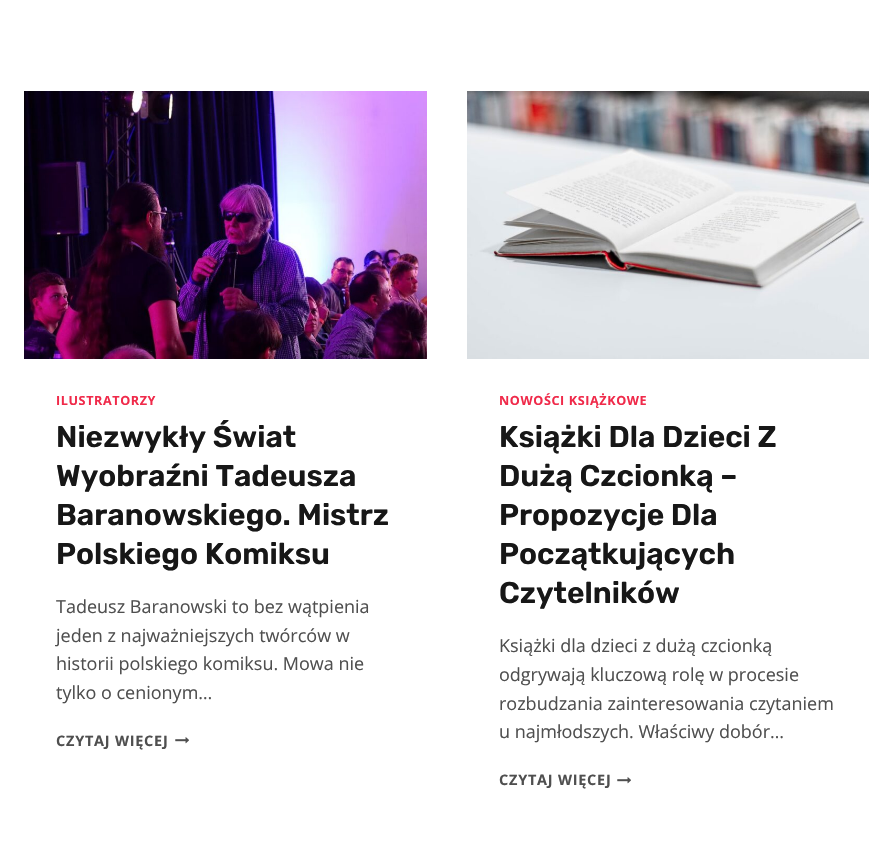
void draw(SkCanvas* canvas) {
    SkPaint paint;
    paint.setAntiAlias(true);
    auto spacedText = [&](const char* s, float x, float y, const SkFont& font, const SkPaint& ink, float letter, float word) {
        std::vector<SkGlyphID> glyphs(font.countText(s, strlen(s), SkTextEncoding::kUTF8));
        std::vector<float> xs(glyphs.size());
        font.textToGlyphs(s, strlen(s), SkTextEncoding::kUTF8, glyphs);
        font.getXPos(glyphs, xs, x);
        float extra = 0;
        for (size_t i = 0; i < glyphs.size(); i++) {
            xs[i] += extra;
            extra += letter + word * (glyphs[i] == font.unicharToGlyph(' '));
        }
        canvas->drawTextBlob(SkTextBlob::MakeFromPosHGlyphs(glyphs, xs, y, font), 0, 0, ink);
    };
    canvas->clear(0xFFFFFFFF);
    canvas->drawImageRect(SkImages::DeferredFromEncodedData(SkData::MakeFromFileName("img1.png")), SkRect::MakeXYWH(24, 91, 403, 268), SkSamplingOptions());
    SkFont font1(fontMgr->matchFamilyStyle("Open Sans", SkFontStyle::Bold()), 12.6f);
    font1.setSubpixel(true);
    paint.setColor(0xFFF02A4A);
    spacedText("ILUSTRATORZY", 56, 405, font1, paint, 0.6f, 0);
    SkFont font2(fontMgr->matchFamilyStyle("Rubik", SkFontStyle(600, SkFontStyle::kNormal_Width, SkFontStyle::kUpright_Slant)), 30);
    font2.setSubpixel(true);
    paint.setColor(0xFF171717);
    canvas->drawString("Niezwykły Świat", 56, 447, font2, paint);
    canvas->drawString("Wyobraźni Tadeusza", 56, 486, font2, paint);
    canvas->drawString("Baranowskiego. Mistrz", 56, 525, font2, paint);
    canvas->drawString("Polskiego Komiksu", 56, 564, font2, paint);
    SkFont font3(fontMgr->matchFamilyStyle("Open Sans", SkFontStyle::Normal()), 18);
    font3.setSubpixel(true);
    paint.setColor(0xFF4F4F4F);
    canvas->drawString("Tadeusz Baranowski to bez wątpienia", 56, 613, font3, paint);
    canvas->drawString("jeden z najważniejszych twórców w", 56, 642, font3, paint);
    canvas->drawString("historii polskiego komiksu. Mowa nie", 56, 670, font3, paint);
    canvas->drawString("tylko o cenionym…", 56, 699, font3, paint);
    SkFont font4(fontMgr->matchFamilyStyle("Open Sans", SkFontStyle::Bold()), 14.5f);
    font4.setSubpixel(true);
    spacedText("CZYTAJ WIĘCEJ", 56, 746, font4, paint, 0.75f, 0);
    canvas->drawImageRect(SkImages::DeferredFromEncodedData(SkData::MakeFromFileName("img2.png")), SkRect::MakeXYWH(175, 737, 14, 7), SkSamplingOptions());
    canvas->drawImageRect(SkImages::DeferredFromEncodedData(SkData::MakeFromFileName("img3.png")), SkRect::MakeXYWH(467, 91, 402, 268), SkSamplingOptions());
    paint.setColor(0xFFF02A4A);
    spacedText("NOWOŚCI KSIĄŻKOWE", 499, 405, font1, paint, 0.6f, 0);
    paint.setColor(0xFF171717);
    canvas->drawString("Książki Dla Dzieci Z", 499, 447, font2, paint);
    canvas->drawString("Dużą Czcionką –", 499, 486, font2, paint);
    canvas->drawString("Propozycje Dla", 499, 525, font2, paint);
    canvas->drawString("Początkujących", 499, 564, font2, paint);
    canvas->drawString("Czytelników", 499, 603, font2, paint);
    paint.setColor(0xFF4F4F4F);
    canvas->drawString("Książki dla dzieci z dużą czcionką", 499, 652, font3, paint);
    canvas->drawString("odgrywają kluczową rolę w procesie", 499, 681, font3, paint);
    canvas->drawString("rozbudzania zainteresowania czytaniem", 499, 710, font3, paint);
    canvas->drawString("u najmłodszych. Właściwy dobór…", 499, 738, font3, paint);
    spacedText("CZYTAJ WIĘCEJ", 499, 785, font4, paint, 0.75f, 0);
    canvas->drawImageRect(SkImages::DeferredFromEncodedData(SkData::MakeFromFileName("img2.png")), SkRect::MakeXYWH(617, 777, 14, 7), SkSamplingOptions());
}
